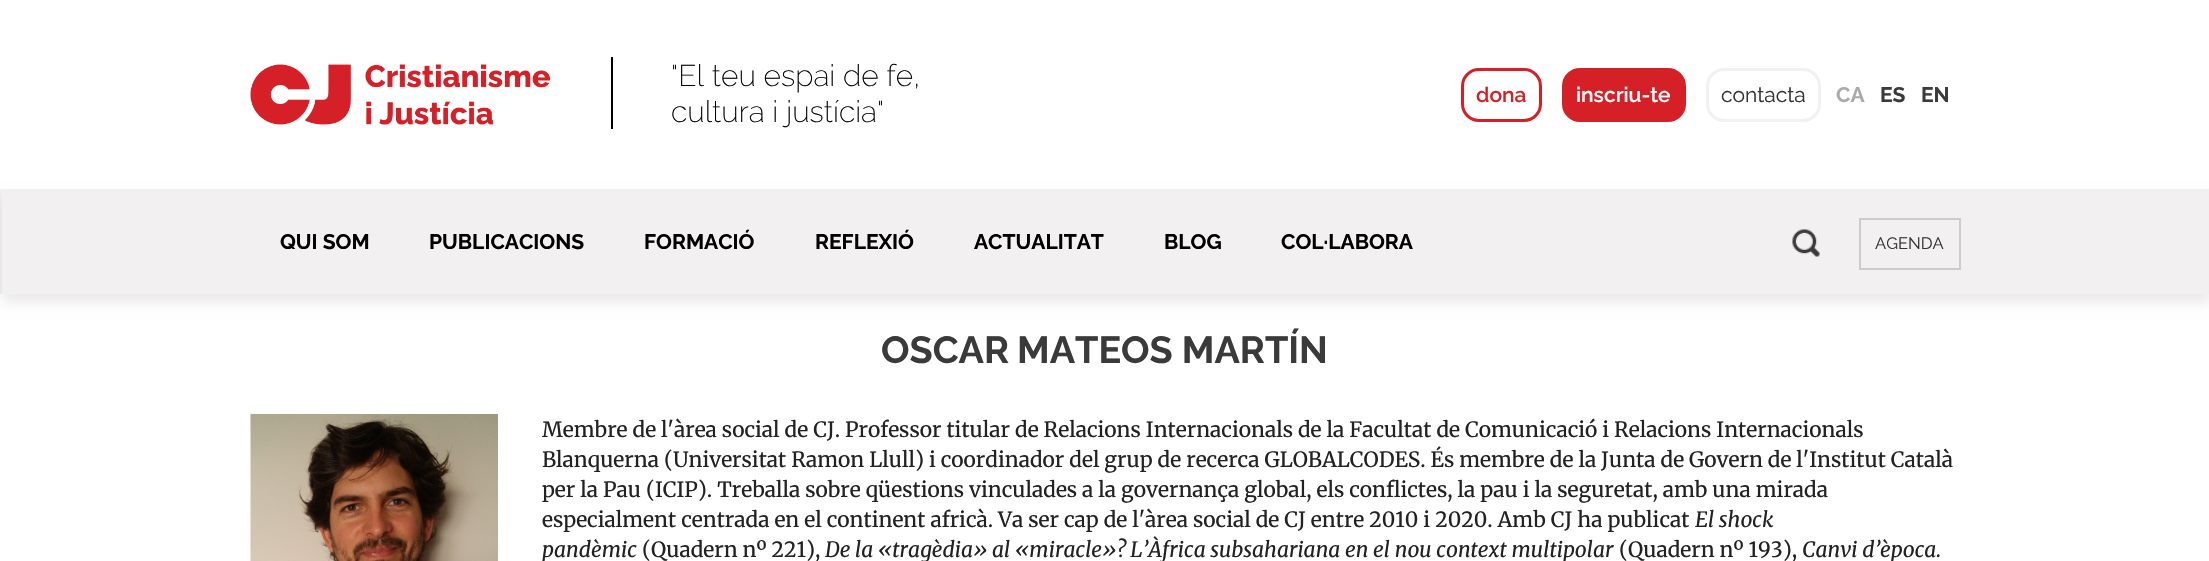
void draw(SkCanvas* canvas) {
    SkPaint paint;
    paint.setAntiAlias(true);
    canvas->clear(0xFFFFFFFF);
    canvas->drawImageRect(SkImages::DeferredFromEncodedData(SkData::MakeFromFileName("img1.png")), SkRect::MakeXYWH(250, 64, 300, 61), SkSamplingOptions());
    paint.setColor(0xFF000000);
    canvas->drawRect(SkRect::MakeXYWH(611, 57, 2, 72), paint);
    SkFont font1(fontMgr->matchFamilyStyle("Raleway", SkFontStyle(200, SkFontStyle::kNormal_Width, SkFontStyle::kUpright_Slant)), 30);
    font1.setSubpixel(true);
    canvas->drawString("\"El teu espai de fe,", 671, 86, font1, paint);
    canvas->drawString("cultura i justícia\"", 671, 122, font1, paint);
    paint.setStyle(SkPaint::kStroke_Style);
    paint.setStrokeWidth(3);
    paint.setColor(0xFFD52027);
    canvas->drawRoundRect(SkRect::MakeXYWH(1462.5f, 69.5f, 78, 51), 16.5f, 16.5f, paint);
    SkFont font2(fontMgr->matchFamilyStyle("Raleway", SkFontStyle(600, SkFontStyle::kNormal_Width, SkFontStyle::kUpright_Slant)), 21);
    font2.setSubpixel(true);
    paint.setStyle(SkPaint::kFill_Style);
    canvas->drawString("dona", 1476, 102, font2, paint);
    canvas->drawRoundRect(SkRect::MakeXYWH(1563.5f, 69.5f, 121, 51), 16.5f, 16.5f, paint);
    paint.setStyle(SkPaint::kStroke_Style);
    canvas->drawRoundRect(SkRect::MakeXYWH(1563.5f, 69.5f, 121, 51), 16.5f, 16.5f, paint);
    paint.setStyle(SkPaint::kFill_Style);
    paint.setColor(0xFFFFFFFF);
    canvas->drawString("inscriu-te", 1576, 102, font2, paint);
    paint.setStyle(SkPaint::kStroke_Style);
    paint.setColor(0xFFF2F0F0);
    canvas->drawRoundRect(SkRect::MakeXYWH(1707.5f, 69.5f, 112, 51), 16.5f, 16.5f, paint);
    SkFont font3(fontMgr->matchFamilyStyle("Raleway", SkFontStyle::Normal()), 21);
    font3.setSubpixel(true);
    paint.setStyle(SkPaint::kFill_Style);
    paint.setColor(0xFF333333);
    canvas->drawString("contacta", 1721, 102, font3, paint);
    SkFont font4(fontMgr->matchFamilyStyle("Raleway", SkFontStyle::Bold()), 21);
    font4.setSubpixel(true);
    paint.setColor(0xFFAAAAAA);
    canvas->drawString("CA", 1836, 102, font4, paint);
    paint.setColor(0xFF3A3A3A);
    canvas->drawString("ES", 1880, 102, font4, paint);
    canvas->drawString("EN", 1921, 102, font4, paint);
    paint.setColor(0xFFF2F0F0);
    canvas->drawRect(SkRect::MakeXYWH(0, 189, 2209, 105), paint);
    canvas->drawImageRect(SkImages::DeferredFromEncodedData(SkData::MakeFromFileName("img2.png")), SkRect::MakeXYWH(1792, 229, 28, 28), SkSamplingOptions());
    paint.setStyle(SkPaint::kStroke_Style);
    paint.setStrokeWidth(2);
    paint.setColor(0xFFCCCCCC);
    canvas->drawRect(SkRect::MakeXYWH(1860, 219, 100, 50), paint);
    canvas->save();
    canvas->clipPath(SkPathBuilder(SkPathFillType::kEvenOdd).moveTo(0, 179).lineTo(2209, 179).lineTo(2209, 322).lineTo(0, 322).close().moveTo(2, 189).lineTo(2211, 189).lineTo(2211, 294).lineTo(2, 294).close().detach(), true);
    paint.setStyle(SkPaint::kFill_Style);
    paint.setColor(0x14000000);
    paint.setMaskFilter(SkMaskFilter::MakeBlur(kNormal_SkBlurStyle, 6));
    canvas->drawRect(SkRect::MakeXYWH(2, 198, 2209, 105), paint);
    paint.setMaskFilter(nullptr);
    canvas->restore();
    paint.setColor(0xFF000000);
    canvas->drawString("QUI SOM", 280, 249, font4, paint);
    canvas->drawString("PUBLICACIONS", 429, 249, font4, paint);
    canvas->drawString("FORMACIÓ", 644, 249, font4, paint);
    canvas->drawString("REFLEXIÓ", 815, 249, font4, paint);
    canvas->drawString("ACTUALITAT", 974, 249, font4, paint);
    canvas->drawString("BLOG", 1164, 249, font4, paint);
    canvas->drawString("COL·LABORA", 1281, 249, font4, paint);
    SkFont font5(fontMgr->matchFamilyStyle("Raleway", SkFontStyle::Normal()), 16.5f);
    font5.setSubpixel(true);
    paint.setColor(0xFF333333);
    canvas->drawString("AGENDA", 1875, 249, font5, paint);
    SkFont font6(fontMgr->matchFamilyStyle("Raleway", SkFontStyle::Bold()), 37.75f);
    font6.setSubpixel(true);
    paint.setColor(0xFF3A3A3A);
    canvas->drawString("OSCAR", 881, 363, font6, paint);
    canvas->drawString("MATEOS MARTÍN", 1017, 363, font6, paint);
    canvas->drawImageRect(SkImages::DeferredFromEncodedData(SkData::MakeFromFileName("img3.png")), SkRect::MakeXYWH(250, 414, 248, 147), SkSamplingOptions());
    SkFont font7(fontMgr->matchFamilyStyle("Merriweather", SkFontStyle::Normal()), 21);
    font7.setSubpixel(true);
    paint.setColor(0xFF222222);
    canvas->drawString("Membre de l'àrea social de CJ. Professor titular de Relacions Internacionals de la Facultat de Comunicació i Relacions Internacionals", 542, 437, font7, paint);
    canvas->drawString("Blanquerna (Universitat Ramon Llull) i coordinador del grup de recerca GLOBALCODES. És membre de la Junta de Govern de l'Institut Català", 542, 467, font7, paint);
    canvas->drawString("per la Pau (ICIP). Treballa sobre qüestions vinculades a la governança global, els conflictes, la pau i la seguretat, amb una mirada", 542, 497, font7, paint);
    canvas->drawString("especialment centrada en el continent africà. Va ser cap de l'àrea social de CJ entre 2010 i 2020. Amb CJ ha publicat", 542, 527, font7, paint);
    SkFont font8(fontMgr->matchFamilyStyle("Merriweather", SkFontStyle(300, SkFontStyle::kNormal_Width, SkFontStyle::kItalic_Slant)), 21);
    font8.setSubpixel(true);
    canvas->drawString("El shock", 1695, 527, font8, paint);
    canvas->drawString("pandèmic", 542, 557, font8, paint);
    canvas->drawString("(Quadern nº 221),", 642, 557, font7, paint);
    canvas->drawString("De la «tragèdia» al «miracle»? L’Àfrica subsahariana en el nou context multipolar", 825, 557, font8, paint);
    canvas->drawString("(Quadern nº 193),", 1619, 557, font7, paint);
    canvas->drawString("Canvi d’època.", 1802, 557, font8, paint);
}
